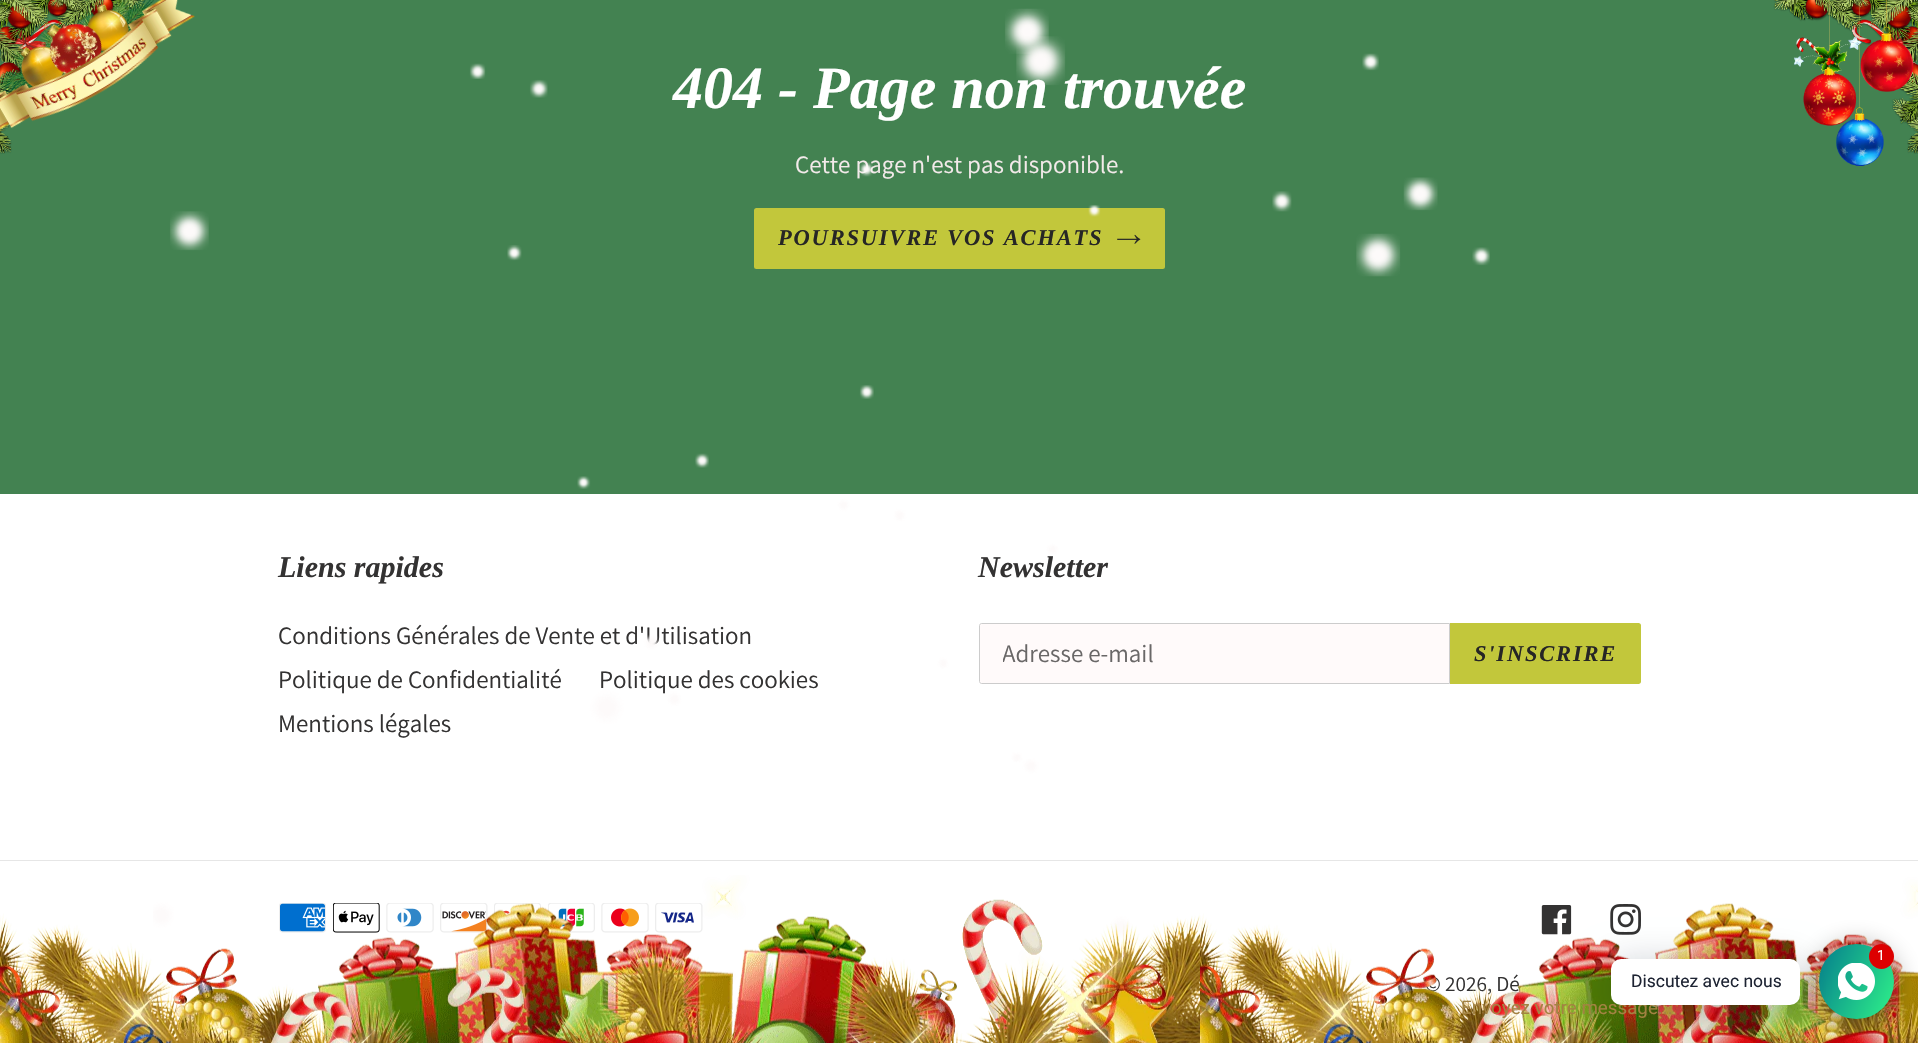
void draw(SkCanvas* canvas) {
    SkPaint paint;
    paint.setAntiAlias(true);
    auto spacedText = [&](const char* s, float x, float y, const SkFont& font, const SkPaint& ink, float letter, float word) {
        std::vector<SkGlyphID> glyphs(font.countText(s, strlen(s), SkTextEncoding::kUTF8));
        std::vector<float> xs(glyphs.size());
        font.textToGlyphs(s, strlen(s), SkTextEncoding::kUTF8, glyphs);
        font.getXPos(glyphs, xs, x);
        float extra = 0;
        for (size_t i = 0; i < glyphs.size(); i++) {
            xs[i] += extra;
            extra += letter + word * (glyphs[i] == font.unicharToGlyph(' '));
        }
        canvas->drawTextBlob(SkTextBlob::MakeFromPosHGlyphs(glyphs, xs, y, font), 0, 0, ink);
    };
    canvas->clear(0xFF438251);
    canvas->drawImageRect(SkImages::DeferredFromEncodedData(SkData::MakeFromFileName("img1.png")), SkRect::MakeXYWH(0, 0, 145, 154), SkSamplingOptions());
    SkFont font1(fontMgr->matchFamilyStyle("Liberation Serif", SkFontStyle::BoldItalic()), 60);
    font1.setSubpixel(true);
    paint.setColor(0xFFFFFFFF);
    canvas->drawString("404 - Page non trouvée", 673, 108, font1, paint);
    SkFont font2(fontMgr->matchFamilyStyle("Assistant", SkFontStyle::Normal()), 25);
    font2.setSubpixel(true);
    paint.setColor(0xFFF3EAEA);
    canvas->drawString("Cette page n'est pas disponible.", 795, 173, font2, paint);
    paint.setColor(0xFFC2C73B);
    canvas->drawRoundRect(SkRect::MakeXYWH(754, 208, 411, 61), 2.5f, 2.5f, paint);
    SkFont font3(fontMgr->matchFamilyStyle("Liberation Serif", SkFontStyle::BoldItalic()), 22.5f);
    font3.setSubpixel(true);
    paint.setColor(0xFF262625);
    spacedText("POURSUIVRE VOS ACHATS", 778, 245, font3, paint, 1.8f, 0);
    canvas->drawImageRect(SkImages::DeferredFromEncodedData(SkData::MakeFromFileName("img6.png")), SkRect::MakeXYWH(1117, 234, 24, 10), SkSamplingOptions());
    paint.setColor(0xFFFFFFFF);
    canvas->drawRect(SkRect::MakeXYWH(0, 494, 1918, 549), paint);
    SkFont font4(fontMgr->matchFamilyStyle("Liberation Serif", SkFontStyle::BoldItalic()), 30);
    font4.setSubpixel(true);
    paint.setColor(0xFF333232);
    canvas->drawString("Liens rapides", 278, 577, font4, paint);
    canvas->drawString("Conditions Générales de Vente et d'Utilisation", 278, 644, font2, paint);
    canvas->drawString("Politique de Confidentialité", 278, 688, font2, paint);
    canvas->drawString("Politique des cookies", 599, 688, font2, paint);
    canvas->drawString("Mentions légales", 278, 732, font2, paint);
    canvas->drawString("Newsletter", 978, 577, font4, paint);
    paint.setColor(0xFFFFFAFA);
    canvas->drawPath(SkPathBuilder().moveTo(981.5f, 623.5f).lineTo(1449.5f, 623.5f).lineTo(1449.5f, 683.5f).lineTo(981.5f, 683.5f).cubicTo(980.5f, 683.5f, 979.5f, 682.5f, 979.5f, 681.5f).lineTo(979.5f, 625.5f).cubicTo(979.5f, 624.5f, 980.5f, 623.5f, 981.5f, 623.5f).close().detach(), paint);
    paint.setStyle(SkPaint::kStroke_Style);
    paint.setStrokeWidth(1);
    paint.setColor(0xFFCCCCCC);
    canvas->drawPath(SkPathBuilder().moveTo(981.5f, 623.5f).lineTo(1449.5f, 623.5f).lineTo(1449.5f, 683.5f).lineTo(981.5f, 683.5f).cubicTo(980.5f, 683.5f, 979.5f, 682.5f, 979.5f, 681.5f).lineTo(979.5f, 625.5f).cubicTo(979.5f, 624.5f, 980.5f, 623.5f, 981.5f, 623.5f).close().detach(), paint);
    canvas->save();
    canvas->clipRect(SkRect::MakeXYWH(1003, 638, 423, 32));
    paint.setStyle(SkPaint::kFill_Style);
    paint.setColor(0xFF696767);
    canvas->drawString("Adresse e-mail", 1002, 662, font2, paint);
    canvas->restore();
    paint.setColor(0xFFC2C73B);
    canvas->drawPath(SkPathBuilder().moveTo(1450, 623).lineTo(1638.5f, 623).cubicTo(1640, 623, 1641, 624, 1641, 625.5f).lineTo(1641, 681.5f).cubicTo(1641, 683, 1640, 684, 1638.5f, 684).lineTo(1450, 684).close().detach(), paint);
    paint.setColor(0xFF262625);
    spacedText("S'INSCRIRE", 1474, 661, font3, paint, 1.8f, 0);
    paint.setColor(0xFFE6E6E6);
    canvas->drawRect(SkRect::MakeXYWH(0, 860, 1918, 1), paint);
    canvas->drawImageRect(SkImages::DeferredFromEncodedData(SkData::MakeFromFileName("img7.png")), SkRect::MakeXYWH(279, 903, 47, 30), SkSamplingOptions());
    canvas->drawImageRect(SkImages::DeferredFromEncodedData(SkData::MakeFromFileName("img8.png")), SkRect::MakeXYWH(333, 903, 47, 30), SkSamplingOptions());
    canvas->drawImageRect(SkImages::DeferredFromEncodedData(SkData::MakeFromFileName("img9.png")), SkRect::MakeXYWH(386, 903, 48, 30), SkSamplingOptions());
    canvas->drawImageRect(SkImages::DeferredFromEncodedData(SkData::MakeFromFileName("img10.png")), SkRect::MakeXYWH(440, 903, 48, 30), SkSamplingOptions());
    canvas->drawImageRect(SkImages::DeferredFromEncodedData(SkData::MakeFromFileName("img11.png")), SkRect::MakeXYWH(494, 903, 47, 30), SkSamplingOptions());
    canvas->drawImageRect(SkImages::DeferredFromEncodedData(SkData::MakeFromFileName("img12.png")), SkRect::MakeXYWH(548, 903, 47, 30), SkSamplingOptions());
    canvas->drawImageRect(SkImages::DeferredFromEncodedData(SkData::MakeFromFileName("img13.png")), SkRect::MakeXYWH(601, 903, 48, 30), SkSamplingOptions());
    canvas->drawImageRect(SkImages::DeferredFromEncodedData(SkData::MakeFromFileName("img14.png")), SkRect::MakeXYWH(655, 903, 48, 30), SkSamplingOptions());
    SkFont font5(fontMgr->matchFamilyStyle("Assistant", SkFontStyle::Normal()), 21.25f);
    font5.setSubpixel(true);
    paint.setColor(0xFF333232);
    canvas->drawString("© 2026, Dé", 1425, 991, font5, paint);
    canvas->drawImageRect(SkImages::DeferredFromEncodedData(SkData::MakeFromFileName("img4.png")), SkRect::MakeXYWH(153, 8, 1337, 1026), SkSamplingOptions());
    canvas->drawImageRect(SkImages::DeferredFromEncodedData(SkData::MakeFromFileName("img2.png")), SkRect::MakeXYWH(0, 0, 195, 130), SkSamplingOptions());
    canvas->drawImageRect(SkImages::DeferredFromEncodedData(SkData::MakeFromFileName("img3.png")), SkRect::MakeXYWH(1773, 0, 145, 154), SkSamplingOptions());
    canvas->drawImageRect(SkImages::DeferredFromEncodedData(SkData::MakeFromFileName("img5.png")), SkRect::MakeXYWH(1793, 0, 121, 166), SkSamplingOptions());
    canvas->drawImageRect(SkImages::DeferredFromEncodedData(SkData::MakeFromFileName("img15.png")), SkRect::MakeXYWH(1541, 905, 31, 30), SkSamplingOptions());
    canvas->drawImageRect(SkImages::DeferredFromEncodedData(SkData::MakeFromFileName("img16.png")), SkRect::MakeXYWH(1610, 904, 31, 31), SkSamplingOptions());
    canvas->drawImageRect(SkImages::DeferredFromEncodedData(SkData::MakeFromFileName("img17.png")), SkRect::MakeXYWH(0, 875, 1918, 168), SkSamplingOptions());
    paint.setColor(0x80020610);
    paint.setMaskFilter(SkMaskFilter::MakeBlur(kNormal_SkBlurStyle, 15));
    canvas->drawRoundRect(SkRect::MakeXYWH(1819, 949, 75, 75), 37.5f, 37.5f, paint);
    paint.setMaskFilter(nullptr);
    {
        const SkColor colors[] = {0xFF047C8D, 0xFF2FF289};
        const float stops[] = {0, 1};
        const SkPoint ends[] = {{1811, 960}, {1901, 1002}};
        paint.setShader(SkGradientShader::MakeLinear(ends, colors, stops, 2, SkTileMode::kClamp));
        paint.setAlpha(255);
    }
    canvas->drawCircle(1856.5f, 981.5f, 37.5f, paint);
    paint.setShader(nullptr);
    paint.setColor(0x3D00122E);
    paint.setMaskFilter(SkMaskFilter::MakeBlur(kNormal_SkBlurStyle, 20));
    canvas->drawRoundRect(SkRect::MakeXYWH(1611, 966, 189, 47), 10, 10, paint);
    paint.setMaskFilter(nullptr);
    canvas->drawImageRect(SkImages::DeferredFromEncodedData(SkData::MakeFromFileName("img18.png")), SkRect::MakeXYWH(1838, 963, 37, 37), SkSamplingOptions());
    paint.setColor(0xFFDD0000);
    canvas->drawCircle(1881.5f, 956.5f, 12.5f, paint);
    SkFont font6(fontMgr->matchFamilyStyle("Roboto", SkFontStyle::Normal()), 14);
    font6.setSubpixel(true);
    paint.setColor(0xFFFFFFFF);
    canvas->drawString("1", 1877, 960, font6, paint);
    SkFont font7(fontMgr->matchFamilyStyle("Roboto", SkFontStyle::Normal()), 18.75f);
    font7.setSubpixel(true);
    paint.setColor(0xFFA38242);
    canvas->drawString("Envoyez votre message...", 1461, 1014, font7, paint);
    paint.setColor(0xFFFFFFFF);
    canvas->drawRoundRect(SkRect::MakeXYWH(1611, 959, 189, 46), 10, 10, paint);
    SkFont font8(fontMgr->matchFamilyStyle("Roboto", SkFontStyle::Normal()), 17.5f);
    font8.setSubpixel(true);
    paint.setColor(0xFF1E2433);
    canvas->drawString("Discutez avec nous", 1631, 987, font8, paint);
}
